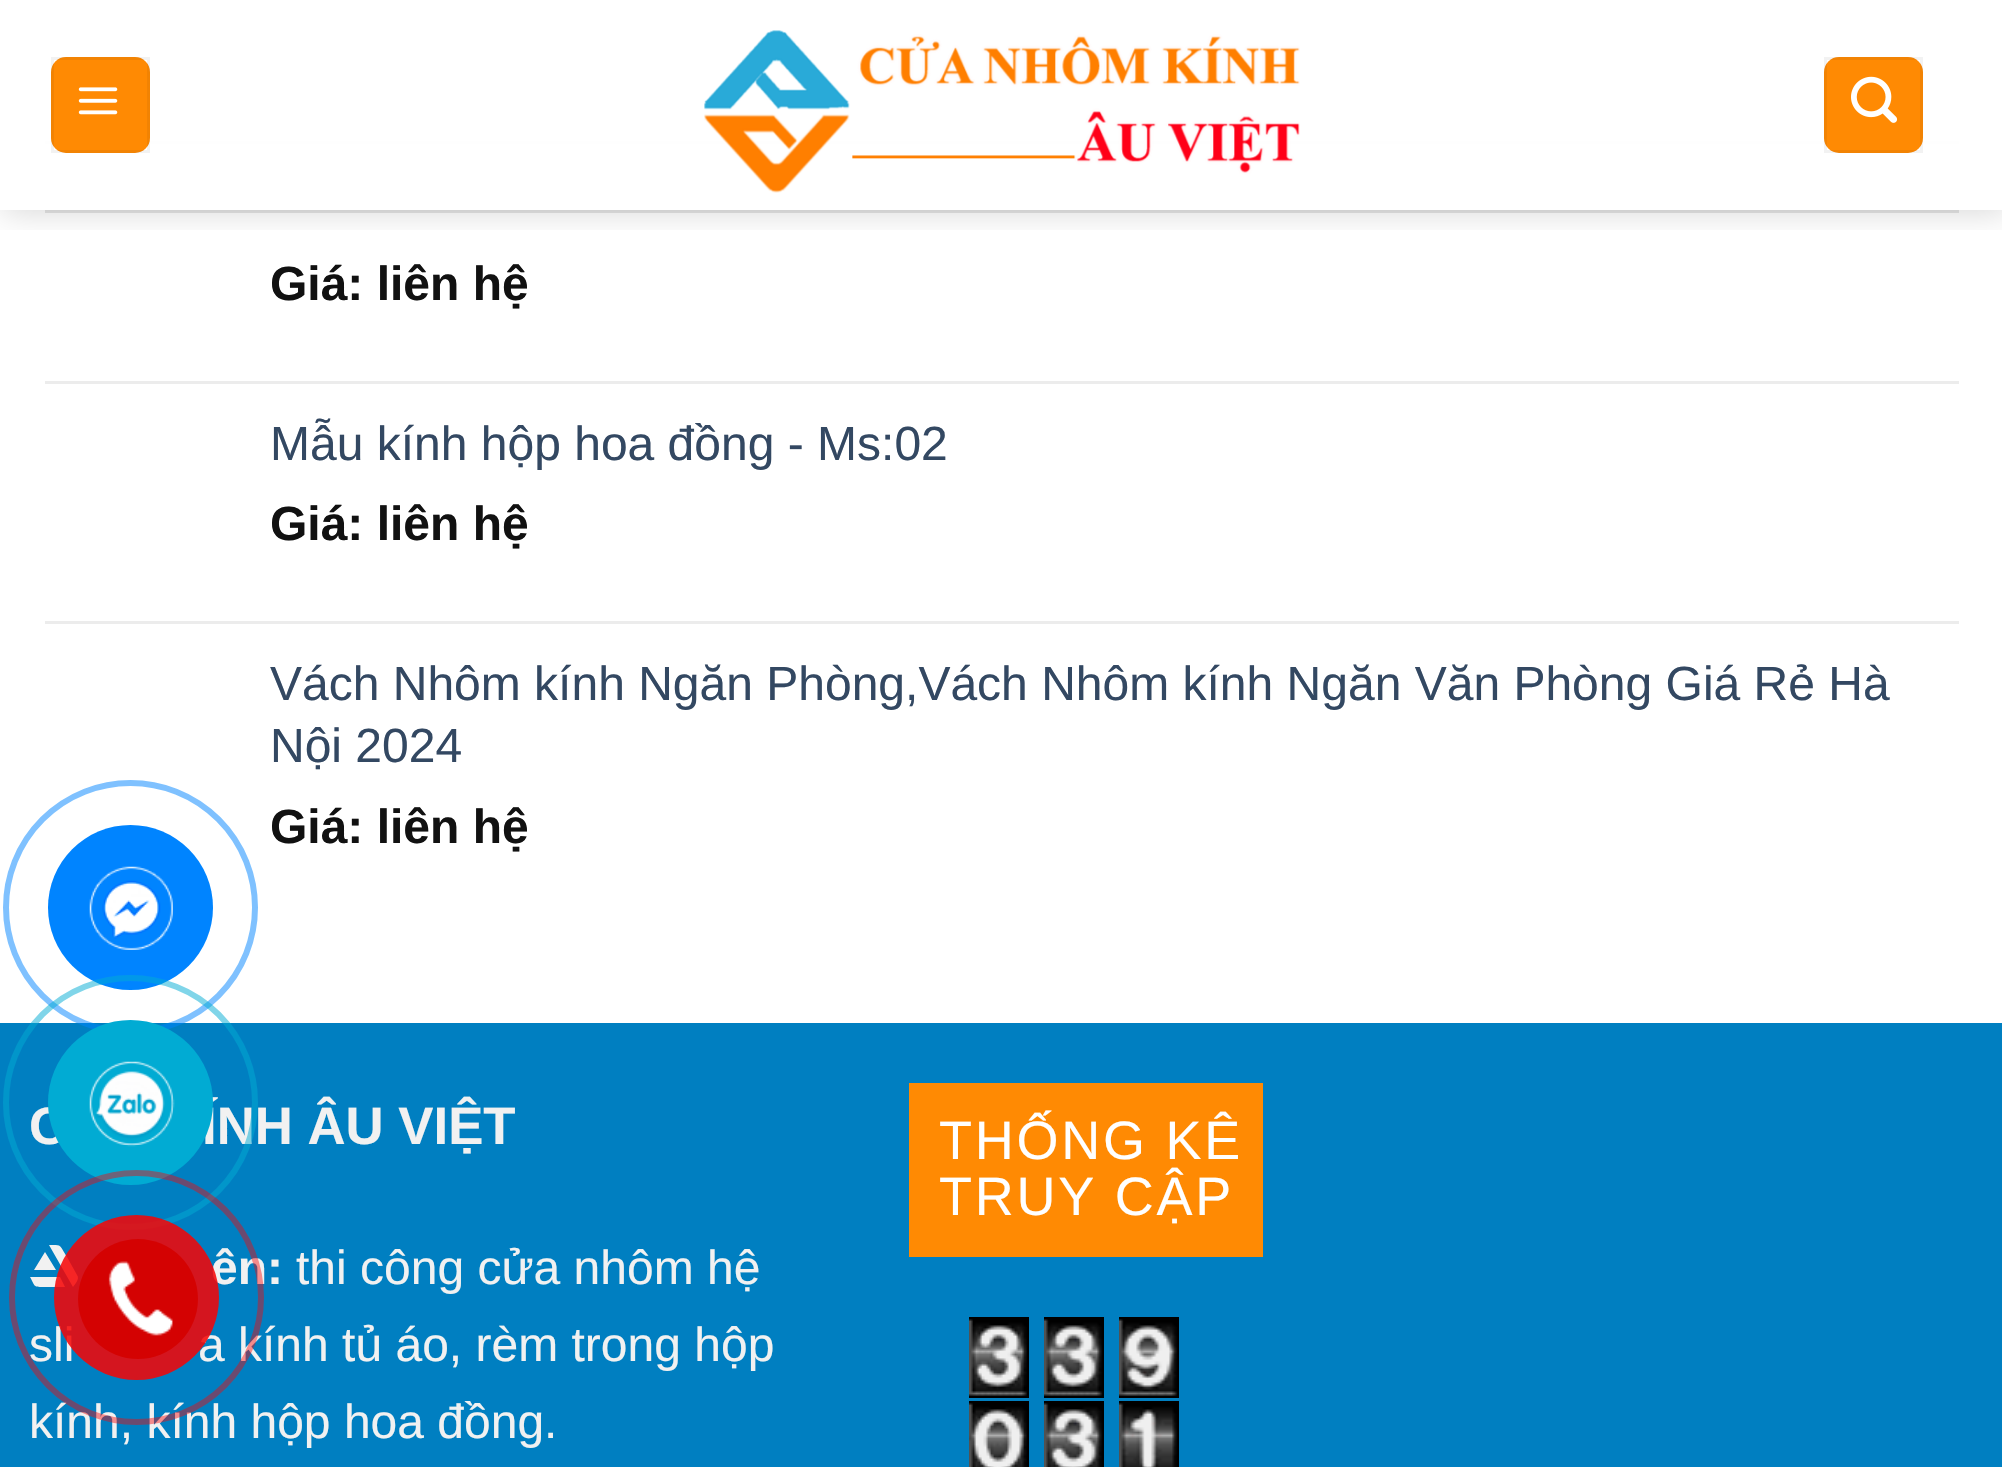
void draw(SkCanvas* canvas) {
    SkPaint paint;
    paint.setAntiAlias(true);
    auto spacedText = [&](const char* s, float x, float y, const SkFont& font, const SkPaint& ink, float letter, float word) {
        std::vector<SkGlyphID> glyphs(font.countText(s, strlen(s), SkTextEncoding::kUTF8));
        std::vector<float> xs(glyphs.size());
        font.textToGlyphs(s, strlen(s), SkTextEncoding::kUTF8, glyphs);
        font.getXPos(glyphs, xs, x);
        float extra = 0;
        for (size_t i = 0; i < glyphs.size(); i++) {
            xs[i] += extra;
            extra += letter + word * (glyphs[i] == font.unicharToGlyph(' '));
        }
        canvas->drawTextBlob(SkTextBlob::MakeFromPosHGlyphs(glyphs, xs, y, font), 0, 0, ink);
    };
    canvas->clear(0xFFFFFFFF);
    paint.setColor(0xFFECECEC);
    canvas->drawRect(SkRect::MakeXYWH(45, 141, 1914, 3), paint);
    canvas->save();
    canvas->clipRect(SkRect::MakeXYWH(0, 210, 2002, 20));
    paint.setColor(0x26000000);
    paint.setMaskFilter(SkMaskFilter::MakeBlur(kNormal_SkBlurStyle, 15));
    canvas->drawRect(SkRect::MakeXYWH(3, 3, 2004, 210), paint);
    paint.setMaskFilter(nullptr);
    canvas->restore();
    paint.setColor(0xE6FFFFFF);
    canvas->drawRect(SkRect::MakeXYWH(45, 141, 1914, 3), paint);
    paint.setColor(0xFFFF8A03);
    canvas->drawRoundRect(SkRect::MakeXYWH(51, 57, 99, 96), 15, 15, paint);
    paint.setStyle(SkPaint::kStroke_Style);
    paint.setStrokeWidth(3);
    paint.setColor(0x0D000000);
    canvas->drawRect(SkRect::MakeXYWH(52.5f, 58.5f, 96, 93), paint);
    canvas->drawImageRect(SkImages::DeferredFromEncodedData(SkData::MakeFromFileName("img1.png")), SkRect::MakeXYWH(78, 87, 40, 28), SkSamplingOptions());
    canvas->drawImageRect(SkImages::DeferredFromEncodedData(SkData::MakeFromFileName("img2.png")), SkRect::MakeXYWH(704, 30, 596, 163), SkSamplingOptions());
    paint.setStyle(SkPaint::kFill_Style);
    paint.setColor(0xFFFF8A03);
    canvas->drawRoundRect(SkRect::MakeXYWH(1824, 57, 99, 96), 15, 15, paint);
    paint.setStyle(SkPaint::kStroke_Style);
    paint.setColor(0x0D000000);
    canvas->drawRect(SkRect::MakeXYWH(1825.5f, 58.5f, 96, 93), paint);
    canvas->drawImageRect(SkImages::DeferredFromEncodedData(SkData::MakeFromFileName("img3.png")), SkRect::MakeXYWH(1851, 76, 47, 47), SkSamplingOptions());
    paint.setStyle(SkPaint::kFill_Style);
    paint.setColor(0x1A000000);
    canvas->drawRect(SkRect::MakeXYWH(45, 210, 1914, 3), paint);
    SkFont font1(fontMgr->matchFamilyStyle("Liberation Sans", SkFontStyle::Bold()), 48);
    font1.setSubpixel(true);
    paint.setColor(0xFF111111);
    canvas->drawString("Giá: liên hệ", 270, 300, font1, paint);
    paint.setColor(0xFFECECEC);
    canvas->drawRect(SkRect::MakeXYWH(45, 381, 1914, 3), paint);
    SkFont font2(fontMgr->matchFamilyStyle("Liberation Sans", SkFontStyle::Normal()), 48);
    font2.setSubpixel(true);
    paint.setColor(0xFF334862);
    canvas->drawString("Mẫu kính hộp hoa đồng - Ms:02", 270, 460, font2, paint);
    paint.setColor(0xFF111111);
    canvas->drawString("Giá: liên hệ", 270, 540, font1, paint);
    paint.setColor(0xFFECECEC);
    canvas->drawRect(SkRect::MakeXYWH(45, 621, 1914, 3), paint);
    paint.setColor(0xFF334862);
    canvas->drawString("Vách Nhôm kính Ngăn Phòng,Vách Nhôm kính Ngăn Văn Phòng Giá Rẻ Hà", 270, 700, font2, paint);
    canvas->drawString("Nội 2024", 270, 762, font2, paint);
    paint.setColor(0xFF111111);
    canvas->drawString("Giá: liên hệ", 270, 843, font1, paint);
    paint.setColor(0xFF007FC1);
    canvas->drawRect(SkRect::MakeXYWH(0, 1023, 2002, 444), paint);
    SkFont font3(fontMgr->matchFamilyStyle("Liberation Sans", SkFontStyle::Bold()), 52.75f);
    font3.setSubpixel(true);
    paint.setColor(0xFFF1F1F1);
    canvas->drawString("C", 29, 1144, font3, paint);
    canvas->drawString("ÍNH ÂU VIỆT", 202, 1144, font3, paint);
    canvas->drawPath(SkPathBuilder().moveTo(30, 1277).lineTo(60, 1277).lineTo(65, 1287).lineTo(43, 1287).cubicTo(33, 1287, 35, 1286, 30, 1277).close().moveTo(77, 1275).cubicTo(80, 1279, 75, 1284, 73, 1287).lineTo(49, 1245).cubicTo(62, 1245, 59, 1244, 67, 1257).close().moveTo(56, 1270).lineTo(34, 1270).lineTo(45, 1252).close().detach(), paint);
    canvas->drawString("ên:", 211, 1284, font1, paint);
    canvas->drawString("thi công cửa nhôm hệ", 296, 1284, font2, paint);
    canvas->drawString("sli", 29, 1361, font2, paint);
    canvas->drawString("a kính tủ áo, rèm trong hộp", 198, 1361, font2, paint);
    canvas->drawString("kính, kính hộp hoa đồng.", 29, 1438, font2, paint);
    paint.setColor(0xFFFF8A03);
    canvas->drawRect(SkRect::MakeXYWH(909, 1083, 354, 174), paint);
    SkFont font4(fontMgr->matchFamilyStyle("Liberation Sans", SkFontStyle::Normal()), 54);
    font4.setSubpixel(true);
    paint.setColor(0xFFFFFFFF);
    spacedText("THỐNG KÊ", 939, 1159, font4, paint, 2.75f, 0);
    spacedText("TRUY CẬP", 939, 1215, font4, paint, 2.75f, 0);
    canvas->drawImageRect(SkImages::DeferredFromEncodedData(SkData::MakeFromFileName("img4.png")), SkRect::MakeXYWH(969, 1317, 60, 81), SkSamplingOptions());
    canvas->drawImageRect(SkImages::DeferredFromEncodedData(SkData::MakeFromFileName("img5.png")), SkRect::MakeXYWH(1044, 1317, 60, 81), SkSamplingOptions());
    canvas->drawImageRect(SkImages::DeferredFromEncodedData(SkData::MakeFromFileName("img6.png")), SkRect::MakeXYWH(1119, 1317, 60, 81), SkSamplingOptions());
    canvas->drawImageRect(SkImages::DeferredFromEncodedData(SkData::MakeFromFileName("img7.png")), SkRect::MakeXYWH(969, 1401, 60, 66), SkSamplingOptions());
    canvas->drawImageRect(SkImages::DeferredFromEncodedData(SkData::MakeFromFileName("img8.png")), SkRect::MakeXYWH(1044, 1401, 60, 66), SkSamplingOptions());
    canvas->drawImageRect(SkImages::DeferredFromEncodedData(SkData::MakeFromFileName("img9.png")), SkRect::MakeXYWH(1119, 1401, 60, 66), SkSamplingOptions());
    paint.setStyle(SkPaint::kStroke_Style);
    paint.setStrokeWidth(6);
    paint.setColor(0x800084FF);
    canvas->drawCircle(130.5f, 907.5f, 124.5f, paint);
    paint.setStyle(SkPaint::kFill_Style);
    paint.setColor(0xFF0084FF);
    canvas->drawCircle(130.5f, 907.5f, 82.5f, paint);
    canvas->drawImageRect(SkImages::DeferredFromEncodedData(SkData::MakeFromFileName("img10.png")), SkRect::MakeXYWH(89, 866, 84, 84), SkSamplingOptions());
    paint.setStyle(SkPaint::kStroke_Style);
    paint.setColor(0x8001ABD3);
    canvas->drawCircle(130.5f, 1102.5f, 124.5f, paint);
    paint.setStyle(SkPaint::kFill_Style);
    paint.setColor(0xFF01ABD3);
    canvas->drawCircle(130.5f, 1102.5f, 82.5f, paint);
    canvas->drawImageRect(SkImages::DeferredFromEncodedData(SkData::MakeFromFileName("img11.png")), SkRect::MakeXYWH(89, 1061, 86, 86), SkSamplingOptions());
    paint.setStyle(SkPaint::kStroke_Style);
    paint.setColor(0x6EF70404);
    canvas->drawCircle(136.5f, 1297.5f, 124.5f, paint);
    paint.setStyle(SkPaint::kFill_Style);
    paint.setColor(0xDBF70404);
    canvas->drawCircle(136.5f, 1297.5f, 82.5f, paint);
    paint.setColor(0xFFD40202);
    canvas->drawCircle(138, 1299, 60, paint);
    canvas->drawImageRect(SkImages::DeferredFromEncodedData(SkData::MakeFromFileName("img12.png")), SkRect::MakeXYWH(108, 1261, 65, 75), SkSamplingOptions());
}
